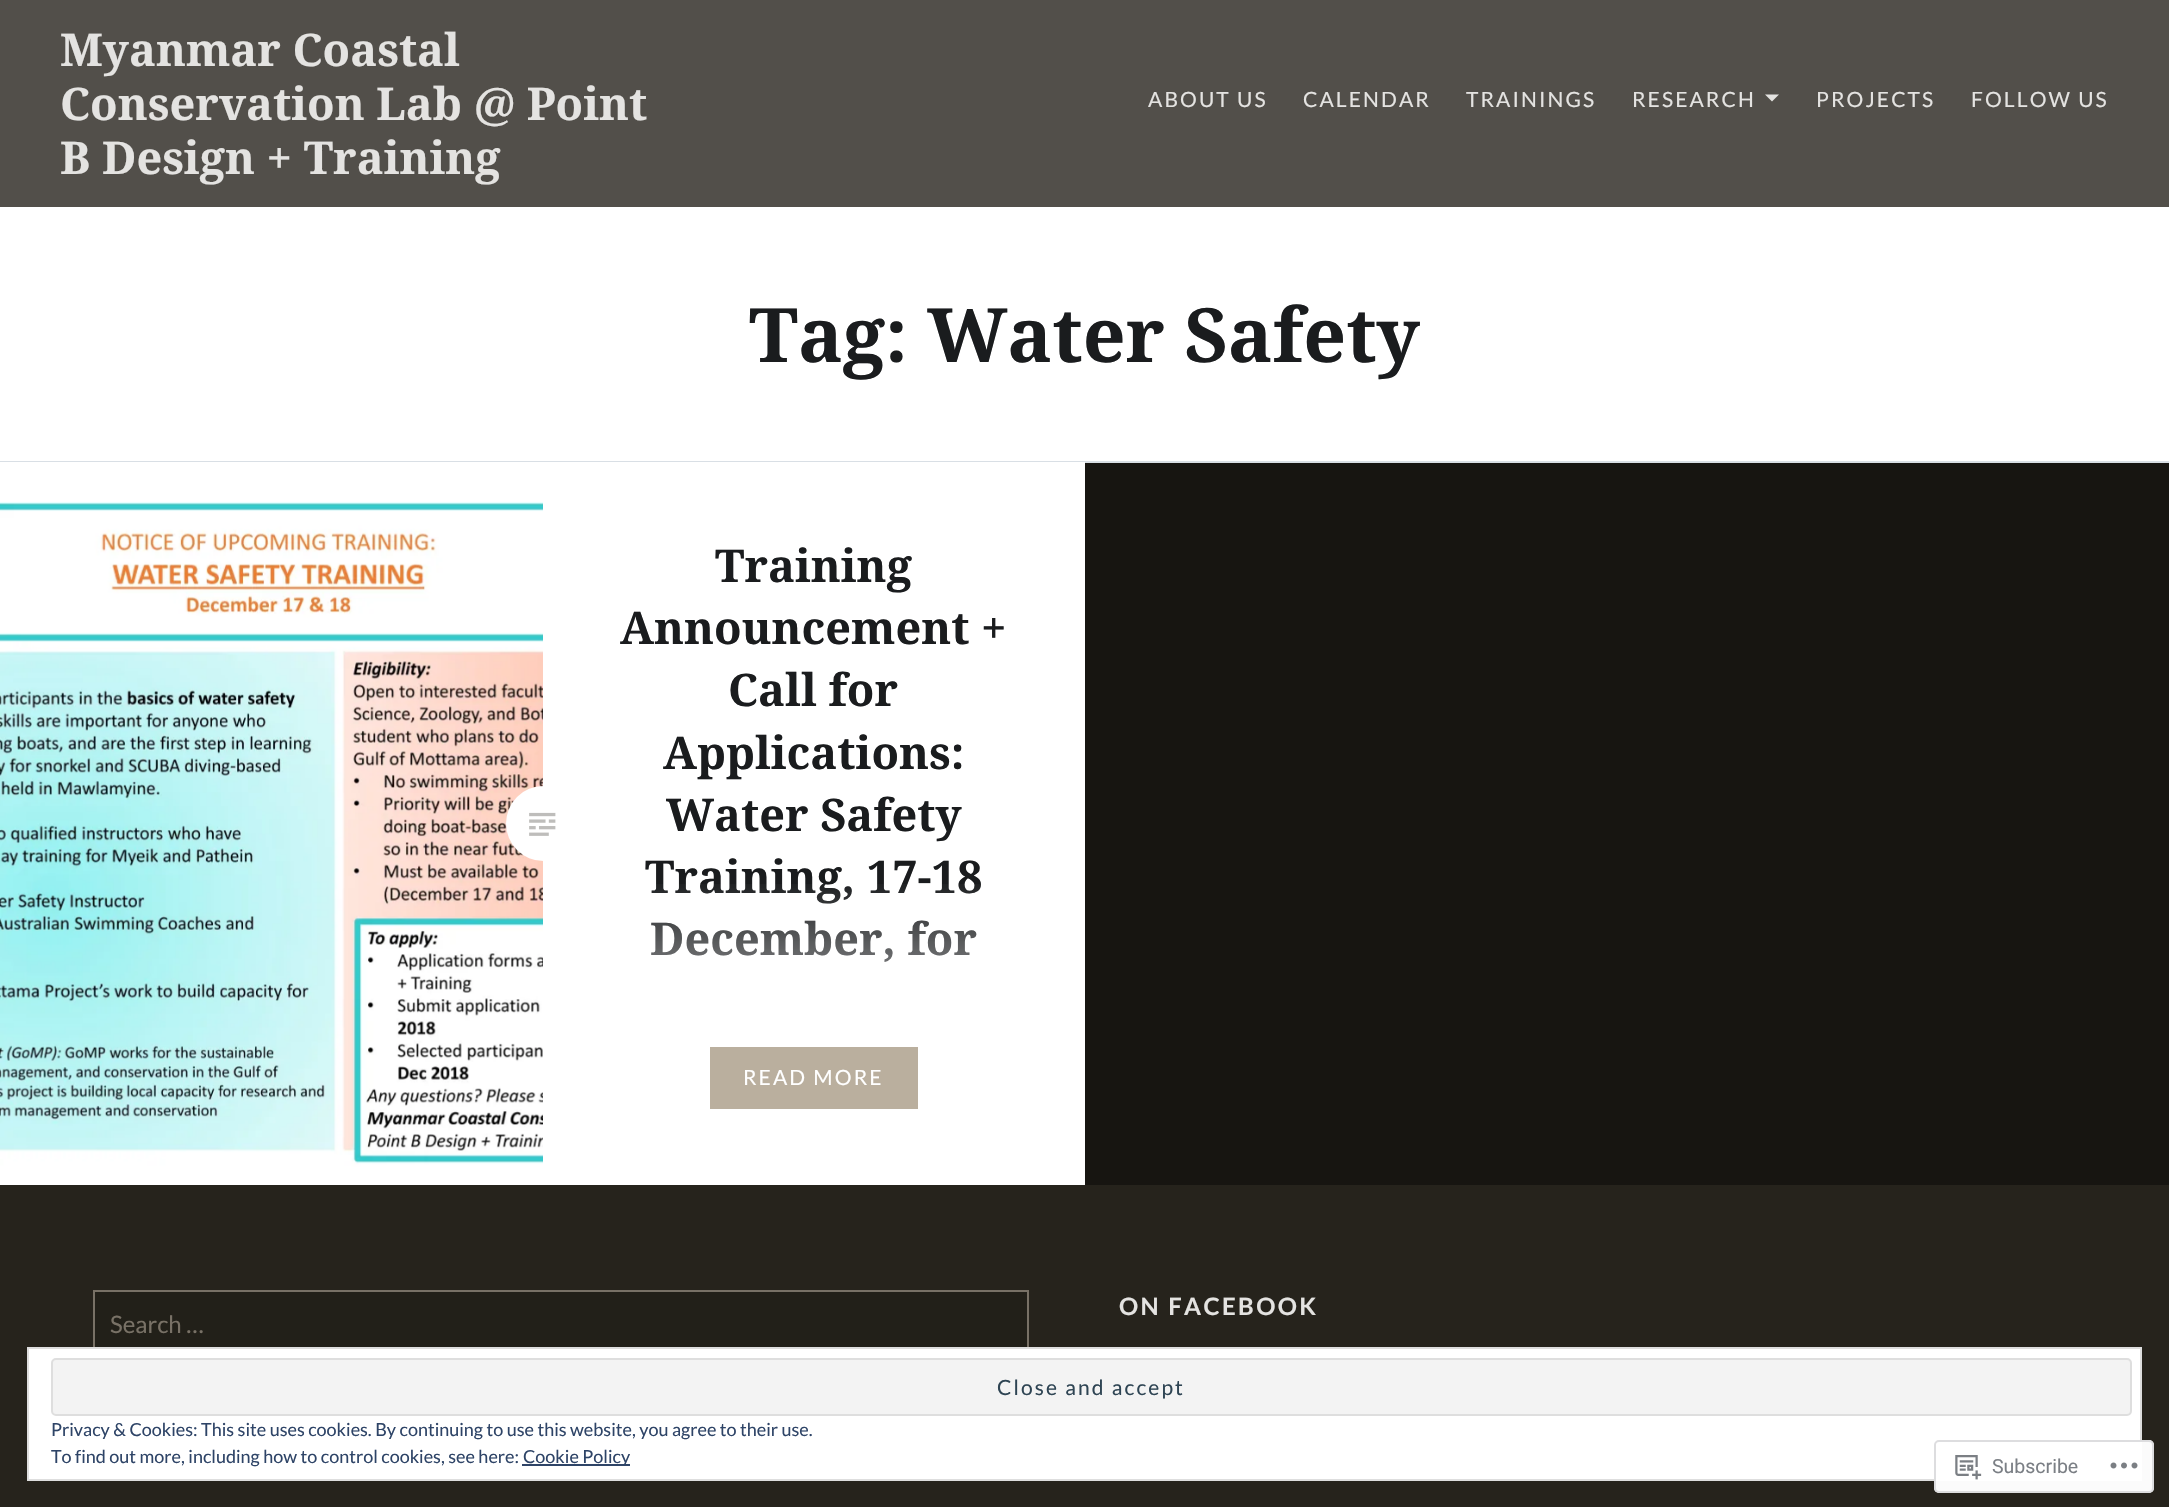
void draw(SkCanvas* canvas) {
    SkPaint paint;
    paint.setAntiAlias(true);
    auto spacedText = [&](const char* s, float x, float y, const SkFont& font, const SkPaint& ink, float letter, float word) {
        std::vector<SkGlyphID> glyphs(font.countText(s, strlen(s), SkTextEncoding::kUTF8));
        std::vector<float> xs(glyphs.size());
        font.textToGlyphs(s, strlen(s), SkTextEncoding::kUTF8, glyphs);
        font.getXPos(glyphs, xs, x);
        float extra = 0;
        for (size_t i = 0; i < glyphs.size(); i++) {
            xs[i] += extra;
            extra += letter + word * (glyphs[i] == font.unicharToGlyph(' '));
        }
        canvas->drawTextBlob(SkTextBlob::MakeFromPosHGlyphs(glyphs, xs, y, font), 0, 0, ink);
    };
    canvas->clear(0xFFFFFFFF);
    paint.setColor(0xFF524F4A);
    canvas->drawRect(SkRect::MakeXYWH(0, 0, 2169, 207), paint);
    SkFont font1(fontMgr->matchFamilyStyle("Noto Serif", SkFontStyle::Bold()), 45);
    font1.setSubpixel(true);
    paint.setColor(0xFFE4E3E1);
    canvas->drawString("Myanmar Coastal", 60, 66, font1, paint);
    canvas->drawString("Conservation Lab @ Point", 60, 120, font1, paint);
    canvas->drawString("B Design + Training", 60, 174, font1, paint);
    SkFont font2(fontMgr->matchFamilyStyle("Lato", SkFontStyle::Normal()), 21);
    font2.setSubpixel(true);
    spacedText("ABOUT US", 1148, 107, font2, paint, 2.1f, 0);
    spacedText("CALENDAR", 1303, 107, font2, paint, 2.1f, 0);
    spacedText("TRAININGS", 1466, 107, font2, paint, 2.1f, 0);
    spacedText("RESEARCH", 1632, 107, font2, paint, 2.1f, 0);
    canvas->drawPath(SkPathBuilder().moveTo(1765, 94.5f).lineTo(1779, 94.5f).lineTo(1772, 101.5f).close().detach(), paint);
    spacedText("PROJECTS", 1816, 107, font2, paint, 2.1f, 0);
    spacedText("FOLLOW US", 1971, 107, font2, paint, 2.1f, 0);
    paint.setColor(0xFF171511);
    canvas->drawRect(SkRect::MakeXYWH(1085, 463, 1084, 722), paint);
    paint.setColor(0xFFD9DFE5);
    canvas->drawRect(SkRect::MakeXYWH(0, 461, 2169, 2), paint);
    SkFont font3(fontMgr->matchFamilyStyle("Noto Serif", SkFontStyle::Bold()), 75);
    font3.setSubpixel(true);
    paint.setColor(0xFF1A1C1E);
    canvas->drawString("Tag: Water Safety", 749, 362, font3, paint);
    paint.setColor(0xFFFFFFFF);
    canvas->drawRect(SkRect::MakeXYWH(0, 462, 1085, 1), paint);
    canvas->drawImageRect(SkImages::DeferredFromEncodedData(SkData::MakeFromFileName("img1.png")), SkRect::MakeXYWH(0, 462, 543, 723), SkSamplingOptions());
    canvas->drawCircle(543.5f, 823.5f, 37.5f, paint);
    paint.setColor(0xFF1A1C1E);
    canvas->drawString("Training", 715, 582, font1, paint);
    canvas->drawString("Announcement +", 620, 644, font1, paint);
    canvas->drawString("Call for", 728, 706, font1, paint);
    canvas->drawString("Applications:", 663, 769, font1, paint);
    canvas->drawString("Water Safety", 666, 831, font1, paint);
    canvas->drawString("Training, 17-18", 645, 893, font1, paint);
    canvas->drawString("December, for", 650, 955, font1, paint);
    {
        const SkColor colors[] = {0x00FFFFFF, 0xFFFFFFFF};
        const float stops[] = {0, 1};
        const SkPoint ends[] = {{814, 879}, {814, 1108}};
        paint.setShader(SkGradientShader::MakeLinear(ends, colors, stops, 2, SkTileMode::kClamp));
        paint.setAlpha(255);
    }
    canvas->drawRect(SkRect::MakeXYWH(651, 884, 330, 78), paint);
    paint.setShader(nullptr);
    paint.setColor(0xFFBAAF9E);
    canvas->drawRect(SkRect::MakeXYWH(710, 1047, 208, 62), paint);
    paint.setColor(0xFFFFFFFF);
    spacedText("READ MORE", 743, 1085, font2, paint, 2.1f, 0);
    canvas->drawImageRect(SkImages::DeferredFromEncodedData(SkData::MakeFromFileName("img2.png")), SkRect::MakeXYWH(529, 812, 27, 24), SkSamplingOptions());
    paint.setColor(0xFF26231C);
    canvas->drawRect(SkRect::MakeXYWH(0, 1185, 2169, 322), paint);
    SkFont font4(fontMgr->matchFamilyStyle("Lato", SkFontStyle::Bold()), 24);
    font4.setSubpixel(true);
    paint.setColor(0xFFE4E3E1);
    spacedText("ON FACEBOOK", 1119, 1315, font4, paint, 2.4f, 0);
    paint.setColor(0xFF222019);
    canvas->drawRect(SkRect::MakeXYWH(95, 1292, 932, 55), paint);
    paint.setStyle(SkPaint::kStroke_Style);
    paint.setStrokeWidth(2);
    paint.setColor(0xFF787166);
    canvas->drawRect(SkRect::MakeXYWH(94, 1291, 934, 67), paint);
    SkFont font5(fontMgr->matchFamilyStyle("Lato", SkFontStyle::Normal()), 24);
    font5.setSubpixel(true);
    paint.setStyle(SkPaint::kFill_Style);
    canvas->drawString("Search …", 110, 1333, font5, paint);
    paint.setColor(0xFFFFFFFF);
    canvas->drawRect(SkRect::MakeXYWH(28, 1348, 2113, 132), paint);
    paint.setStyle(SkPaint::kStroke_Style);
    paint.setColor(0xFFDEDEDE);
    canvas->drawRect(SkRect::MakeXYWH(28, 1348, 2113, 132), paint);
    paint.setStyle(SkPaint::kFill_Style);
    paint.setColor(0xFFF3F3F3);
    canvas->drawRoundRect(SkRect::MakeXYWH(52, 1359, 2079, 56), 4, 4, paint);
    paint.setStyle(SkPaint::kStroke_Style);
    paint.setColor(0xFFDEDEDE);
    canvas->drawRoundRect(SkRect::MakeXYWH(52, 1359, 2079, 56), 4, 4, paint);
    paint.setStyle(SkPaint::kFill_Style);
    paint.setColor(0xFF2E4453);
    spacedText("Close and accept", 997, 1395, font2, paint, 2.1f, 0);
    SkFont font6(fontMgr->matchFamilyStyle("Lato", SkFontStyle::Normal()), 18);
    font6.setSubpixel(true);
    paint.setColor(0xFF2E4467);
    canvas->drawString("Privacy & Cookies: This site uses cookies. By continuing to use this website, you agree to their use.", 51, 1436, font6, paint);
    canvas->drawString("To find out more, including how to control cookies, see here:", 51, 1463, font6, paint);
    canvas->drawRect(SkRect::MakeXYWH(522, 1464, 108, 2), paint);
    canvas->drawString("Cookie Policy", 523, 1463, font6, paint);
    paint.setColor(0xFAFFFFFF);
    canvas->drawRoundRect(SkRect::MakeXYWH(1934, 1440, 220, 53), 5, 5, paint);
    paint.setStyle(SkPaint::kStroke_Style);
    paint.setColor(0xFADCDCDE);
    canvas->drawRoundRect(SkRect::MakeXYWH(1935, 1441, 218, 51), 4, 4, paint);
    canvas->drawImageRect(SkImages::DeferredFromEncodedData(SkData::MakeFromFileName("img3.png")), SkRect::MakeXYWH(1955, 1455, 27, 25), SkSamplingOptions());
    SkFont font7(fontMgr->matchFamilyStyle("Roboto", SkFontStyle::Normal()), 19.5f);
    font7.setSubpixel(true);
    paint.setStyle(SkPaint::kFill_Style);
    paint.setColor(0xFF7B7F85);
    canvas->drawString("Subscribe", 1992, 1473, font7, paint);
    canvas->drawImageRect(SkImages::DeferredFromEncodedData(SkData::MakeFromFileName("img4.png")), SkRect::MakeXYWH(2110, 1462, 28, 7), SkSamplingOptions());
}
